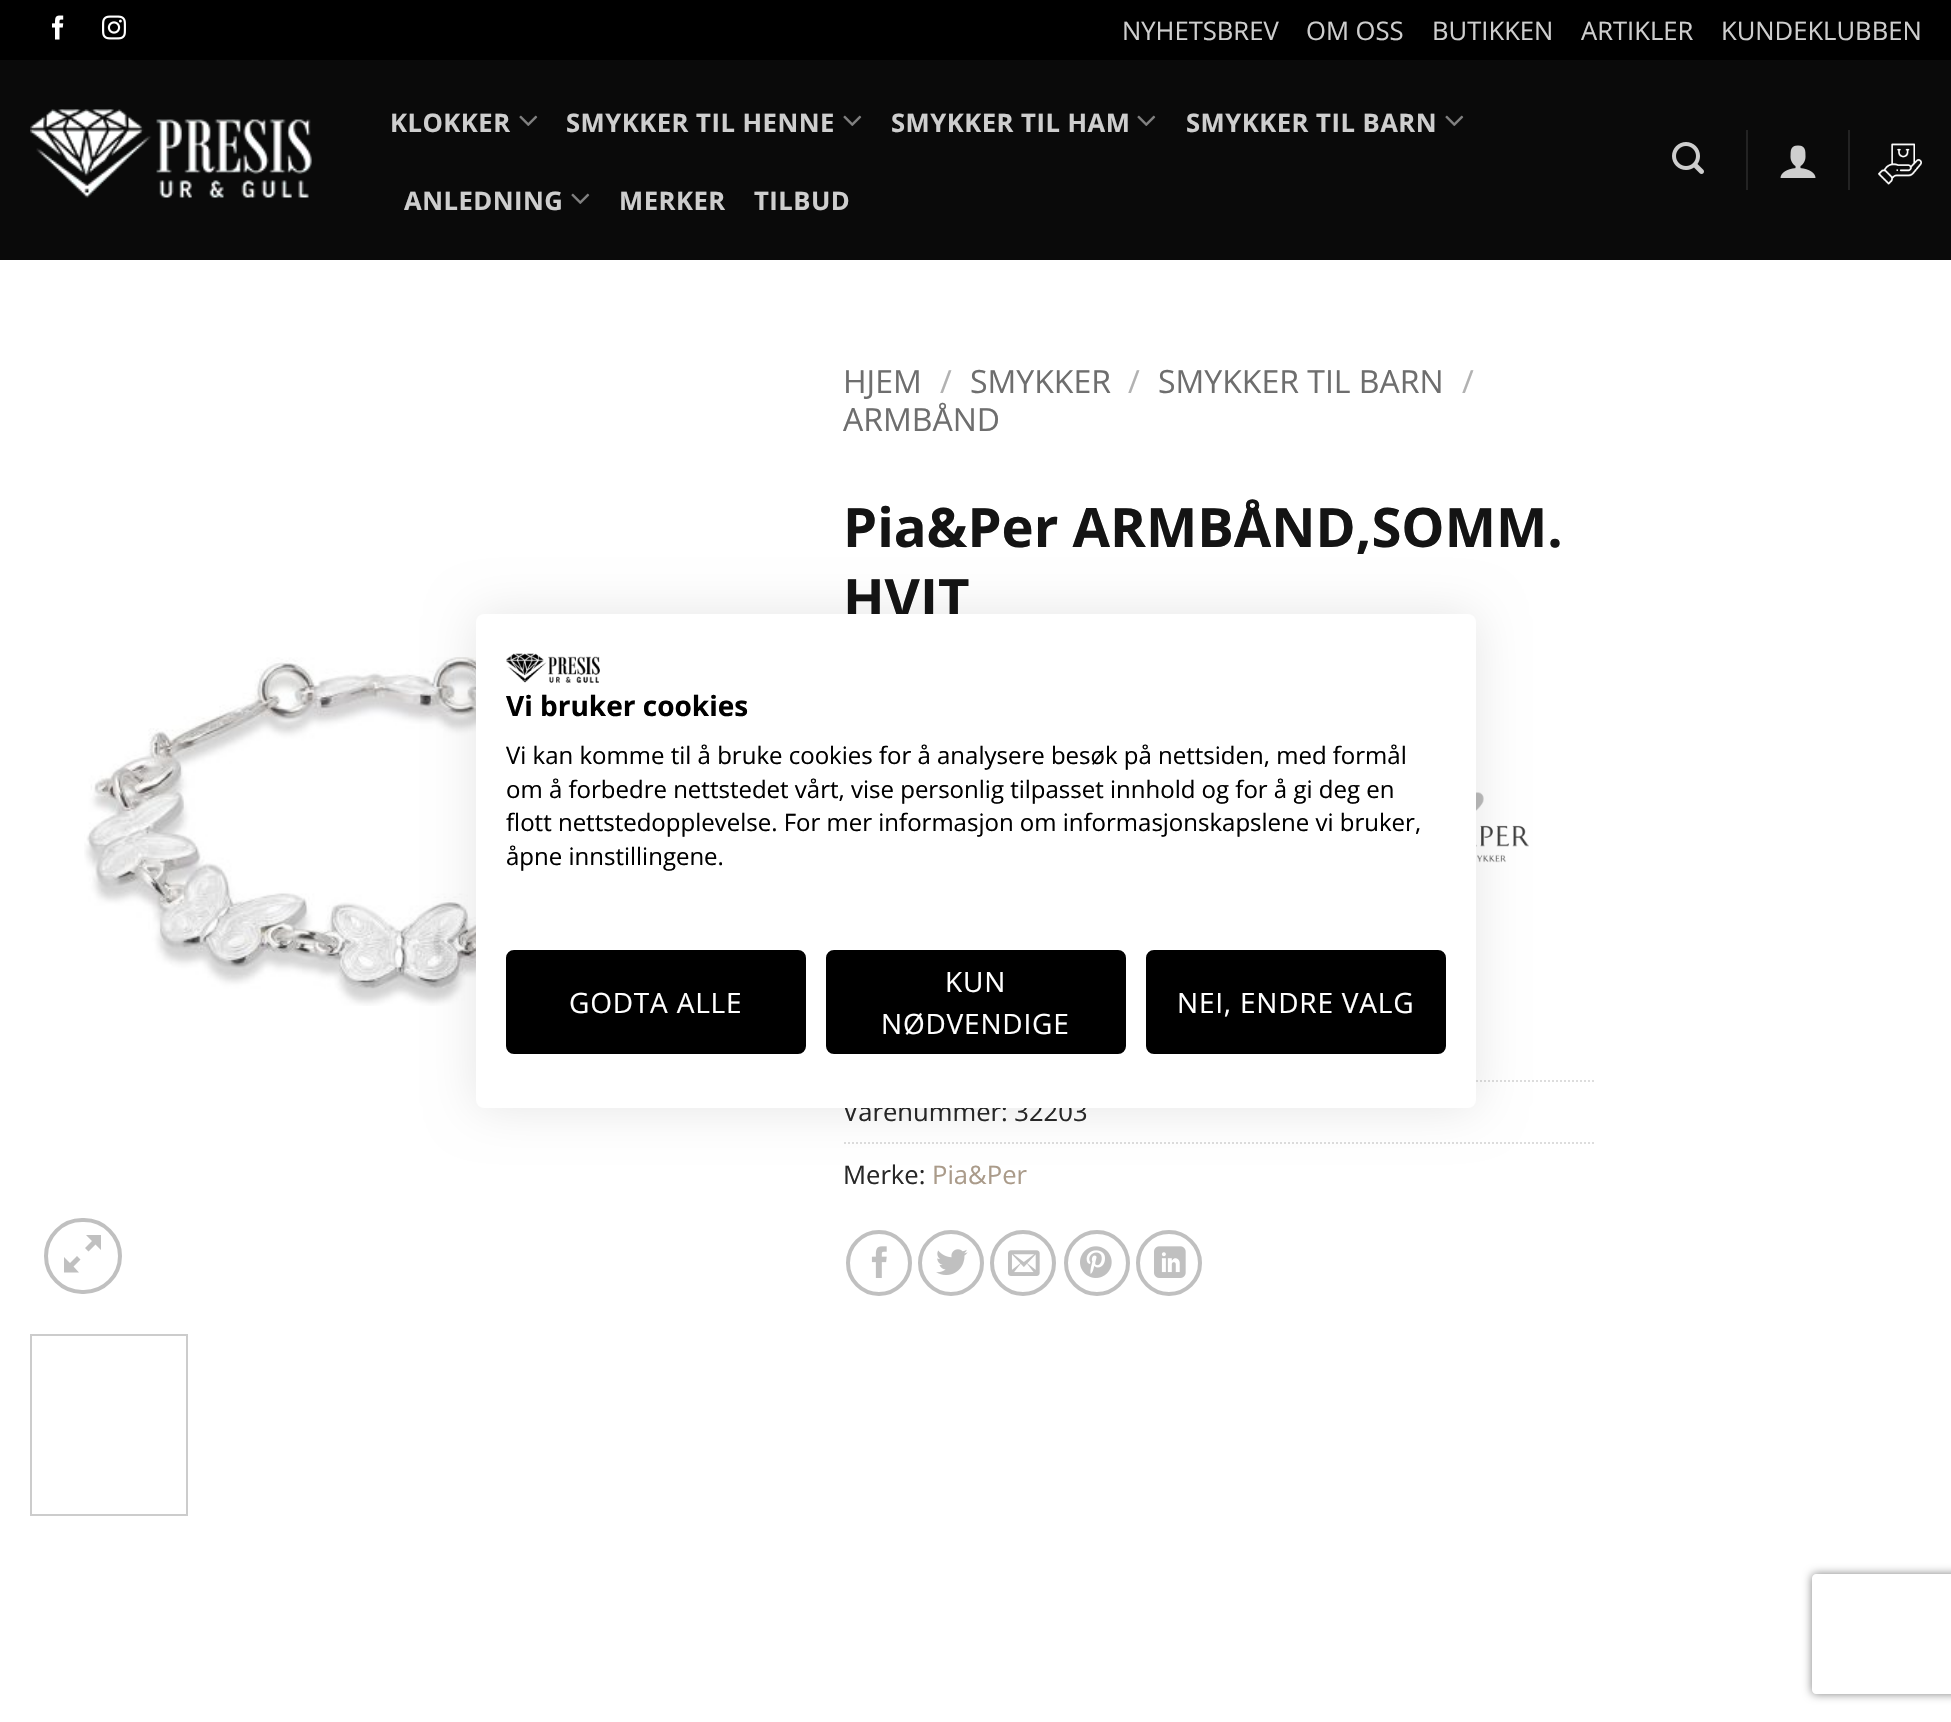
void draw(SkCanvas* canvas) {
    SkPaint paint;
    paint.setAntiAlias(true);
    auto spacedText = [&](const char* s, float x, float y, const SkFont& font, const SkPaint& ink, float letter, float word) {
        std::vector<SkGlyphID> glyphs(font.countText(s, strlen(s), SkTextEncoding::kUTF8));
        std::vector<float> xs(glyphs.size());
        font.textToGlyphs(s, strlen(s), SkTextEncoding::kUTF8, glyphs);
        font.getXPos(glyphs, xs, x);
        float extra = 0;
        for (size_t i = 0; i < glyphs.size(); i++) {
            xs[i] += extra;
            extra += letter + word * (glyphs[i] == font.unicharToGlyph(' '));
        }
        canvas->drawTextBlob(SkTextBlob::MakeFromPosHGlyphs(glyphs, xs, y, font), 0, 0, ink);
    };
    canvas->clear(0xFFFFFFFF);
    paint.setColor(0xFF000000);
    canvas->drawRect(SkRect::MakeXYWH(0, 0, 1951, 60), paint);
    canvas->drawImageRect(SkImages::DeferredFromEncodedData(SkData::MakeFromFileName("img1.png")), SkRect::MakeXYWH(52, 15, 12, 25), SkSamplingOptions());
    canvas->drawImageRect(SkImages::DeferredFromEncodedData(SkData::MakeFromFileName("img2.png")), SkRect::MakeXYWH(102, 15, 24, 25), SkSamplingOptions());
    SkFont font1(fontMgr->matchFamilyStyle("Open Sans", SkFontStyle::Normal()), 25.6f);
    font1.setSubpixel(true);
    paint.setColor(0xFFCECECE);
    canvas->drawString("NYHETSBREV", 1122, 40, font1, paint);
    canvas->drawString("OM OSS", 1306, 40, font1, paint);
    canvas->drawString("BUTIKKEN", 1432, 40, font1, paint);
    canvas->drawString("ARTIKLER", 1581, 40, font1, paint);
    canvas->drawString("KUNDEKLUBBEN", 1721, 40, font1, paint);
    paint.setColor(0xFF0A0A0A);
    canvas->drawRect(SkRect::MakeXYWH(0, 60, 1951, 200), paint);
    canvas->drawImageRect(SkImages::DeferredFromEncodedData(SkData::MakeFromFileName("img3.png")), SkRect::MakeXYWH(30, 109, 282, 89), SkSamplingOptions());
    SkFont font2(fontMgr->matchFamilyStyle("Open Sans", SkFontStyle::Bold()), 25.6f);
    font2.setSubpixel(true);
    paint.setColor(0xFFCECECE);
    spacedText("KLOKKER", 390, 132, font2, paint, 0.5f, 0);
    canvas->drawImageRect(SkImages::DeferredFromEncodedData(SkData::MakeFromFileName("img4.png")), SkRect::MakeXYWH(519, 115, 19, 11), SkSamplingOptions());
    spacedText("SMYKKER TIL HENNE", 566, 132, font2, paint, 0.5f, 0);
    canvas->drawImageRect(SkImages::DeferredFromEncodedData(SkData::MakeFromFileName("img4.png")), SkRect::MakeXYWH(843, 115, 19, 11), SkSamplingOptions());
    spacedText("SMYKKER TIL HAM", 891, 132, font2, paint, 0.5f, 0);
    canvas->drawImageRect(SkImages::DeferredFromEncodedData(SkData::MakeFromFileName("img4.png")), SkRect::MakeXYWH(1137, 115, 19, 11), SkSamplingOptions());
    spacedText("SMYKKER TIL BARN", 1186, 132, font2, paint, 0.5f, 0);
    canvas->drawImageRect(SkImages::DeferredFromEncodedData(SkData::MakeFromFileName("img4.png")), SkRect::MakeXYWH(1445, 115, 19, 11), SkSamplingOptions());
    spacedText("ANLEDNING", 404, 210, font2, paint, 0.5f, 0);
    canvas->drawImageRect(SkImages::DeferredFromEncodedData(SkData::MakeFromFileName("img4.png")), SkRect::MakeXYWH(571, 193, 19, 11), SkSamplingOptions());
    spacedText("MERKER", 619, 210, font2, paint, 0.5f, 0);
    spacedText("TILBUD", 754, 210, font2, paint, 0.5f, 0);
    canvas->drawImageRect(SkImages::DeferredFromEncodedData(SkData::MakeFromFileName("img5.png")), SkRect::MakeXYWH(1672, 142, 32, 32), SkSamplingOptions());
    paint.setColor(0xFF232323);
    canvas->drawRect(SkRect::MakeXYWH(1746, 130, 2, 60), paint);
    canvas->drawImageRect(SkImages::DeferredFromEncodedData(SkData::MakeFromFileName("img6.png")), SkRect::MakeXYWH(1780, 145, 36, 33), SkSamplingOptions());
    canvas->drawRect(SkRect::MakeXYWH(1848, 130, 2, 60), paint);
    canvas->drawImageRect(SkImages::DeferredFromEncodedData(SkData::MakeFromFileName("img7.png")), SkRect::MakeXYWH(1878, 143, 44, 42), SkSamplingOptions());
    canvas->drawImageRect(SkImages::DeferredFromEncodedData(SkData::MakeFromFileName("img8.png")), SkRect::MakeXYWH(84, 657, 392, 349), SkSamplingOptions());
    paint.setStyle(SkPaint::kStroke_Style);
    paint.setStrokeWidth(4);
    paint.setColor(0xFFC0C0C0);
    canvas->drawRoundRect(SkRect::MakeXYWH(46, 1220, 74, 72), 36, 36, paint);
    paint.setStyle(SkPaint::kFill_Style);
    canvas->drawPath(SkPathBuilder().moveTo(101, 1235).lineTo(101, 1250).lineTo(95.5f, 1244.5f).lineTo(88.5f, 1251.5f).lineTo(85, 1248).lineTo(92, 1241).lineTo(86, 1235).close().moveTo(80.5f, 1259.5f).lineTo(73.5f, 1266.5f).lineTo(79, 1272.5f).lineTo(64, 1272.5f).lineTo(64, 1257).lineTo(70, 1263).lineTo(77, 1256).close().detach(), paint);
    paint.setStyle(SkPaint::kStroke_Style);
    paint.setStrokeWidth(2);
    paint.setColor(0xFFCCCCCC);
    canvas->drawRect(SkRect::MakeXYWH(31, 1335, 156, 180), paint);
    SkFont font3(fontMgr->matchFamilyStyle("Open Sans", SkFontStyle::Normal()), 32);
    font3.setSubpixel(true);
    paint.setStyle(SkPaint::kFill_Style);
    paint.setColor(0xFF6E6E6E);
    canvas->drawString("HJEM", 843, 393, font3, paint);
    paint.setColor(0xFFB2B2B2);
    canvas->drawString("/", 940, 393, font3, paint);
    paint.setColor(0xFF6E6E6E);
    canvas->drawString("SMYKKER", 970, 393, font3, paint);
    paint.setColor(0xFFB2B2B2);
    canvas->drawString("/", 1128, 393, font3, paint);
    paint.setColor(0xFF6E6E6E);
    canvas->drawString("SMYKKER TIL BARN", 1158, 393, font3, paint);
    paint.setColor(0xFFB2B2B2);
    canvas->drawString("/", 1462, 393, font3, paint);
    paint.setColor(0xFF6E6E6E);
    canvas->drawString("ARMBÅND", 843, 431, font3, paint);
    SkFont font4(fontMgr->matchFamilyStyle("Open Sans", SkFontStyle::Bold()), 54.4f);
    font4.setSubpixel(true);
    paint.setColor(0xFF141414);
    canvas->drawString("Pia&Per ARMBÅND,SOMM.", 843, 547, font4, paint);
    canvas->drawString("HVIT", 843, 618, font4, paint);
    canvas->drawImageRect(SkImages::DeferredFromEncodedData(SkData::MakeFromFileName("img9.png")), SkRect::MakeXYWH(1476, 792, 53, 71), SkSamplingOptions());
    paint.setStyle(SkPaint::kStroke_Style);
    paint.setColor(0xFFDDDDDD);
    paint.setPathEffect(SkDashPathEffect::Make({{2, 2}}, 0));
    canvas->drawPath(SkPathBuilder().moveTo(844, 1081).lineTo(1596, 1081).detach(), paint);
    paint.setPathEffect(nullptr);
    paint.setStyle(SkPaint::kFill_Style);
    paint.setColor(0xFF282828);
    canvas->drawString("Varenummer: 32203", 843, 1121, font1, paint);
    paint.setStyle(SkPaint::kStroke_Style);
    paint.setColor(0xFFDDDDDD);
    paint.setPathEffect(SkDashPathEffect::Make({{2, 2}}, 0));
    canvas->drawPath(SkPathBuilder().moveTo(844, 1143).lineTo(1596, 1143).detach(), paint);
    paint.setPathEffect(nullptr);
    paint.setStyle(SkPaint::kFill_Style);
    paint.setColor(0xFF282828);
    canvas->drawString("Merke:", 843, 1184, font1, paint);
    paint.setColor(0xFFAA9B8A);
    canvas->drawString("Pia&Per", 932, 1184, font1, paint);
    paint.setStyle(SkPaint::kStroke_Style);
    paint.setStrokeWidth(4);
    paint.setColor(0xFFC0C0C0);
    canvas->drawCircle(879, 1263, 31, paint);
    canvas->drawImageRect(SkImages::DeferredFromEncodedData(SkData::MakeFromFileName("img10.png")), SkRect::MakeXYWH(871, 1246, 16, 32), SkSamplingOptions());
    canvas->drawCircle(951, 1263, 31, paint);
    canvas->drawImageRect(SkImages::DeferredFromEncodedData(SkData::MakeFromFileName("img11.png")), SkRect::MakeXYWH(936, 1249, 32, 26), SkSamplingOptions());
    canvas->drawCircle(1023, 1263, 31, paint);
    canvas->drawImageRect(SkImages::DeferredFromEncodedData(SkData::MakeFromFileName("img12.png")), SkRect::MakeXYWH(1008, 1250, 32, 26), SkSamplingOptions());
    canvas->drawCircle(1097, 1263, 31, paint);
    canvas->drawImageRect(SkImages::DeferredFromEncodedData(SkData::MakeFromFileName("img13.png")), SkRect::MakeXYWH(1080, 1246, 32, 32), SkSamplingOptions());
    canvas->drawCircle(1169, 1263, 31, paint);
    canvas->drawImageRect(SkImages::DeferredFromEncodedData(SkData::MakeFromFileName("img14.png")), SkRect::MakeXYWH(1154, 1246, 32, 32), SkSamplingOptions());
    paint.setStyle(SkPaint::kFill_Style);
    paint.setColor(0x1A000000);
    paint.setMaskFilter(SkMaskFilter::MakeBlur(kNormal_SkBlurStyle, 24));
    canvas->drawRoundRect(SkRect::MakeXYWH(476, 614, 1000, 494), 8, 8, paint);
    paint.setMaskFilter(nullptr);
    paint.setColor(0xFFFFFFFF);
    canvas->drawRoundRect(SkRect::MakeXYWH(476, 614, 1000, 494), 8, 8, paint);
    canvas->drawImageRect(SkImages::DeferredFromEncodedData(SkData::MakeFromFileName("img15.png")), SkRect::MakeXYWH(506, 653, 94, 30), SkSamplingOptions());
    SkFont font5(fontMgr->matchFamilyStyle("Open Sans", SkFontStyle::Bold()), 28);
    font5.setSubpixel(true);
    paint.setColor(0xFF000000);
    canvas->drawString("Vi bruker cookies", 506, 716, font5, paint);
    SkFont font6(fontMgr->matchFamilyStyle("Open Sans", SkFontStyle::Normal()), 24);
    font6.setSubpixel(true);
    canvas->drawString("Vi kan komme til å bruke cookies for å analysere besøk på nettsiden, med formål", 506, 764, font6, paint);
    canvas->drawString("om å forbedre nettstedet vårt, vise personlig tilpasset innhold og for å gi deg en", 506, 798, font6, paint);
    canvas->drawString("flott nettstedopplevelse. For mer informasjon om informasjonskapslene vi bruker,", 506, 831, font6, paint);
    canvas->drawString("åpne innstillingene.", 506, 865, font6, paint);
    canvas->drawRoundRect(SkRect::MakeXYWH(507, 951, 298, 102), 7, 7, paint);
    paint.setStyle(SkPaint::kStroke_Style);
    paint.setStrokeWidth(2);
    canvas->drawRoundRect(SkRect::MakeXYWH(507, 951, 298, 102), 7, 7, paint);
    SkFont font7(fontMgr->matchFamilyStyle("Open Sans", SkFontStyle::Normal()), 28);
    font7.setSubpixel(true);
    paint.setStyle(SkPaint::kFill_Style);
    paint.setColor(0xFFFFFFFF);
    spacedText("GODTA ALLE", 569, 1013, font7, paint, 0.8f, 0);
    paint.setColor(0xFF000000);
    canvas->drawRoundRect(SkRect::MakeXYWH(827, 951, 298, 102), 7, 7, paint);
    paint.setStyle(SkPaint::kStroke_Style);
    canvas->drawRoundRect(SkRect::MakeXYWH(827, 951, 298, 102), 7, 7, paint);
    paint.setStyle(SkPaint::kFill_Style);
    paint.setColor(0xFFFFFFFF);
    spacedText("KUN", 945, 992, font7, paint, 0.8f, 0);
    spacedText("NØDVENDIGE", 881, 1034, font7, paint, 0.8f, 0);
    paint.setColor(0xFF000000);
    canvas->drawRoundRect(SkRect::MakeXYWH(1147, 951, 298, 102), 7, 7, paint);
    paint.setStyle(SkPaint::kStroke_Style);
    canvas->drawRoundRect(SkRect::MakeXYWH(1147, 951, 298, 102), 7, 7, paint);
    paint.setStyle(SkPaint::kFill_Style);
    paint.setColor(0xFFFFFFFF);
    spacedText("NEI, ENDRE VALG", 1177, 1013, font7, paint, 0.8f, 0);
    canvas->save();
    canvas->clipPath(SkPathBuilder(SkPathFillType::kEvenOdd).moveTo(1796, 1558).lineTo(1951, 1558).lineTo(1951, 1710).lineTo(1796, 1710).close().moveTo(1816, 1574).lineTo(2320, 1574).cubicTo(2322, 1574, 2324, 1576, 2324, 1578).lineTo(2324, 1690).cubicTo(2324, 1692, 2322, 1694, 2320, 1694).lineTo(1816, 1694).cubicTo(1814, 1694, 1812, 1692, 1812, 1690).lineTo(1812, 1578).cubicTo(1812, 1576, 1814, 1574, 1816, 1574).close().detach(), true);
    paint.setColor(0xFF808080);
    paint.setMaskFilter(SkMaskFilter::MakeBlur(kNormal_SkBlurStyle, 5));
    canvas->drawRoundRect(SkRect::MakeXYWH(1812, 1574, 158, 120), 4, 4, paint);
    paint.setMaskFilter(nullptr);
    canvas->restore();
}
